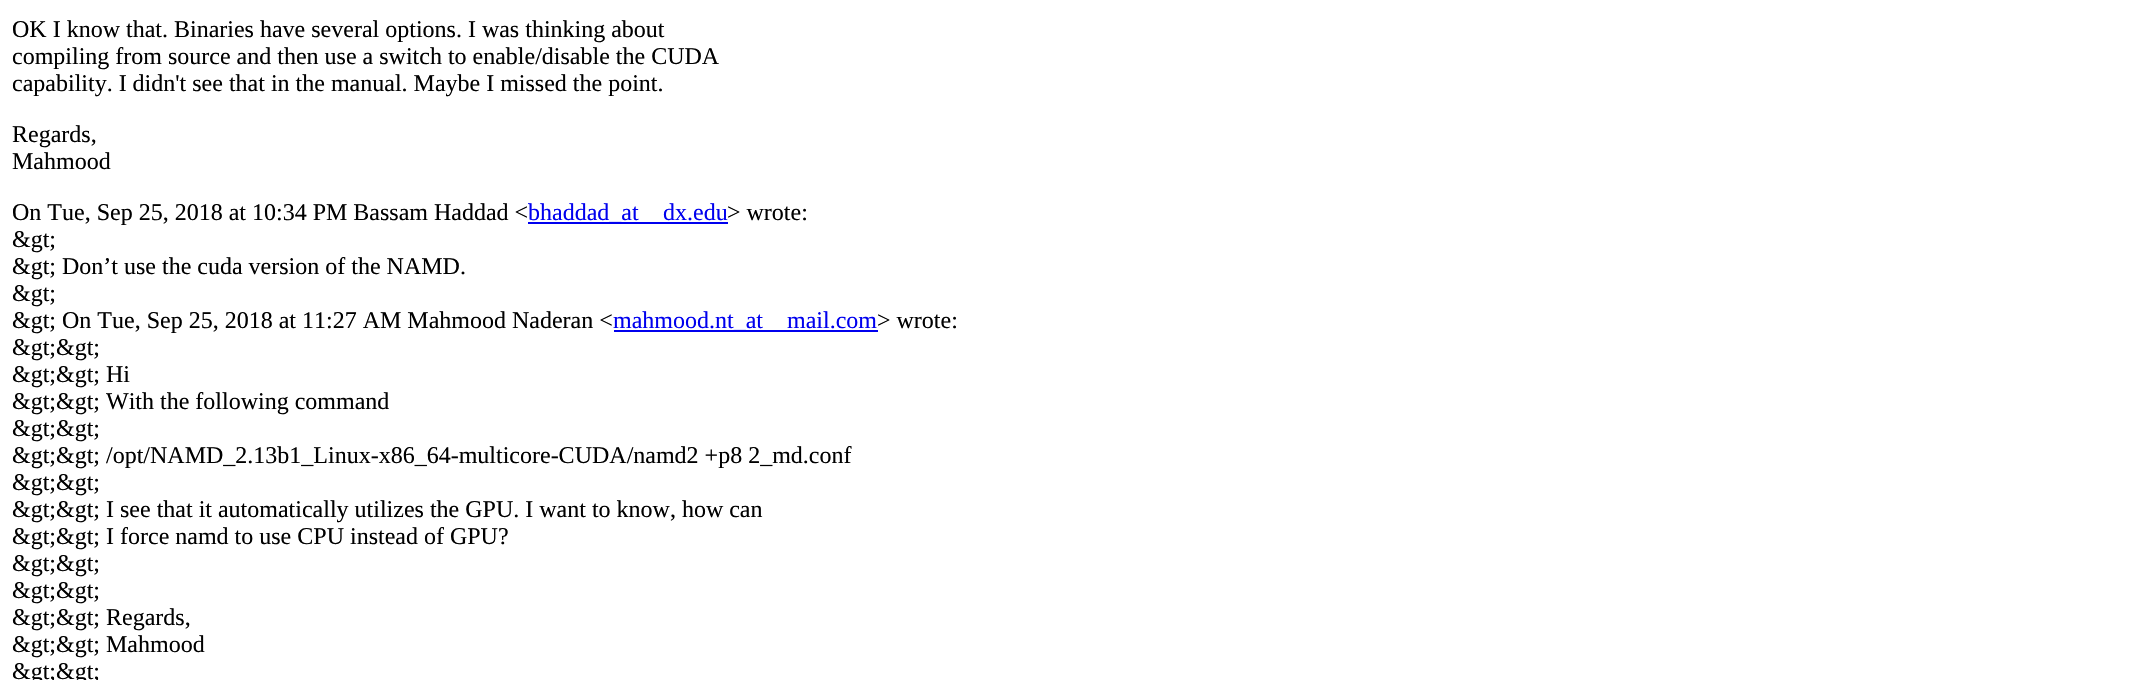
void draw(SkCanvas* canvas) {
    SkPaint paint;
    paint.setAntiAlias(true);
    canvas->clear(0xFFFFFFFF);
    SkFont font1(fontMgr->matchFamilyStyle("Liberation Serif", SkFontStyle::Normal()), 24);
    font1.setSubpixel(true);
    paint.setColor(0xFF000000);
    canvas->drawString("OK I know that. Binaries have several options. I was thinking about", 12, 37, font1, paint);
    canvas->drawString("compiling from source and then use a switch to enable/disable the CUDA", 12, 64, font1, paint);
    canvas->drawString("capability. I didn't see that in the manual. Maybe I missed the point.", 12, 91, font1, paint);
    canvas->drawString("Regards,", 12, 142, font1, paint);
    canvas->drawString("Mahmood", 12, 169, font1, paint);
    canvas->drawString("On Tue, Sep 25, 2018 at 10:34 PM Bassam Haddad <", 12, 220, font1, paint);
    paint.setColor(0xFF0000EE);
    canvas->drawRect(SkRect::MakeXYWH(528, 222, 200, 2), paint);
    canvas->drawString("bhaddad_at", 528, 220, font1, paint);
    canvas->drawString("dx.edu", 663, 220, font1, paint);
    paint.setColor(0xFF000000);
    canvas->drawString("> wrote:", 727, 220, font1, paint);
    canvas->drawString("&gt;", 12, 247, font1, paint);
    canvas->drawString("&gt; Don’t use the cuda version of the NAMD.", 12, 274, font1, paint);
    canvas->drawString("&gt;", 12, 301, font1, paint);
    canvas->drawString("&gt; On Tue, Sep 25, 2018 at 11:27 AM Mahmood Naderan <", 12, 328, font1, paint);
    paint.setColor(0xFF0000EE);
    canvas->drawRect(SkRect::MakeXYWH(614, 330, 264, 2), paint);
    canvas->drawString("mahmood.nt_at", 613, 328, font1, paint);
    canvas->drawString("mail.com", 787, 328, font1, paint);
    paint.setColor(0xFF000000);
    canvas->drawString("> wrote:", 877, 328, font1, paint);
    canvas->drawString("&gt;&gt;", 12, 355, font1, paint);
    canvas->drawString("&gt;&gt; Hi", 12, 382, font1, paint);
    canvas->drawString("&gt;&gt; With the following command", 12, 409, font1, paint);
    canvas->drawString("&gt;&gt;", 12, 436, font1, paint);
    canvas->drawString("&gt;&gt; /opt/NAMD_2.13b1_Linux-x86_64-multicore-CUDA/namd2 +p8 2_md.conf", 12, 463, font1, paint);
    canvas->drawString("&gt;&gt;", 12, 490, font1, paint);
    canvas->drawString("&gt;&gt; I see that it automatically utilizes the GPU. I want to know, how can", 12, 517, font1, paint);
    canvas->drawString("&gt;&gt; I force namd to use CPU instead of GPU?", 12, 544, font1, paint);
    canvas->drawString("&gt;&gt;", 12, 571, font1, paint);
    canvas->drawString("&gt;&gt;", 12, 598, font1, paint);
    canvas->drawString("&gt;&gt; Regards,", 12, 625, font1, paint);
    canvas->drawString("&gt;&gt; Mahmood", 12, 652, font1, paint);
    canvas->drawString("&gt;&gt;", 12, 679, font1, paint);
}
